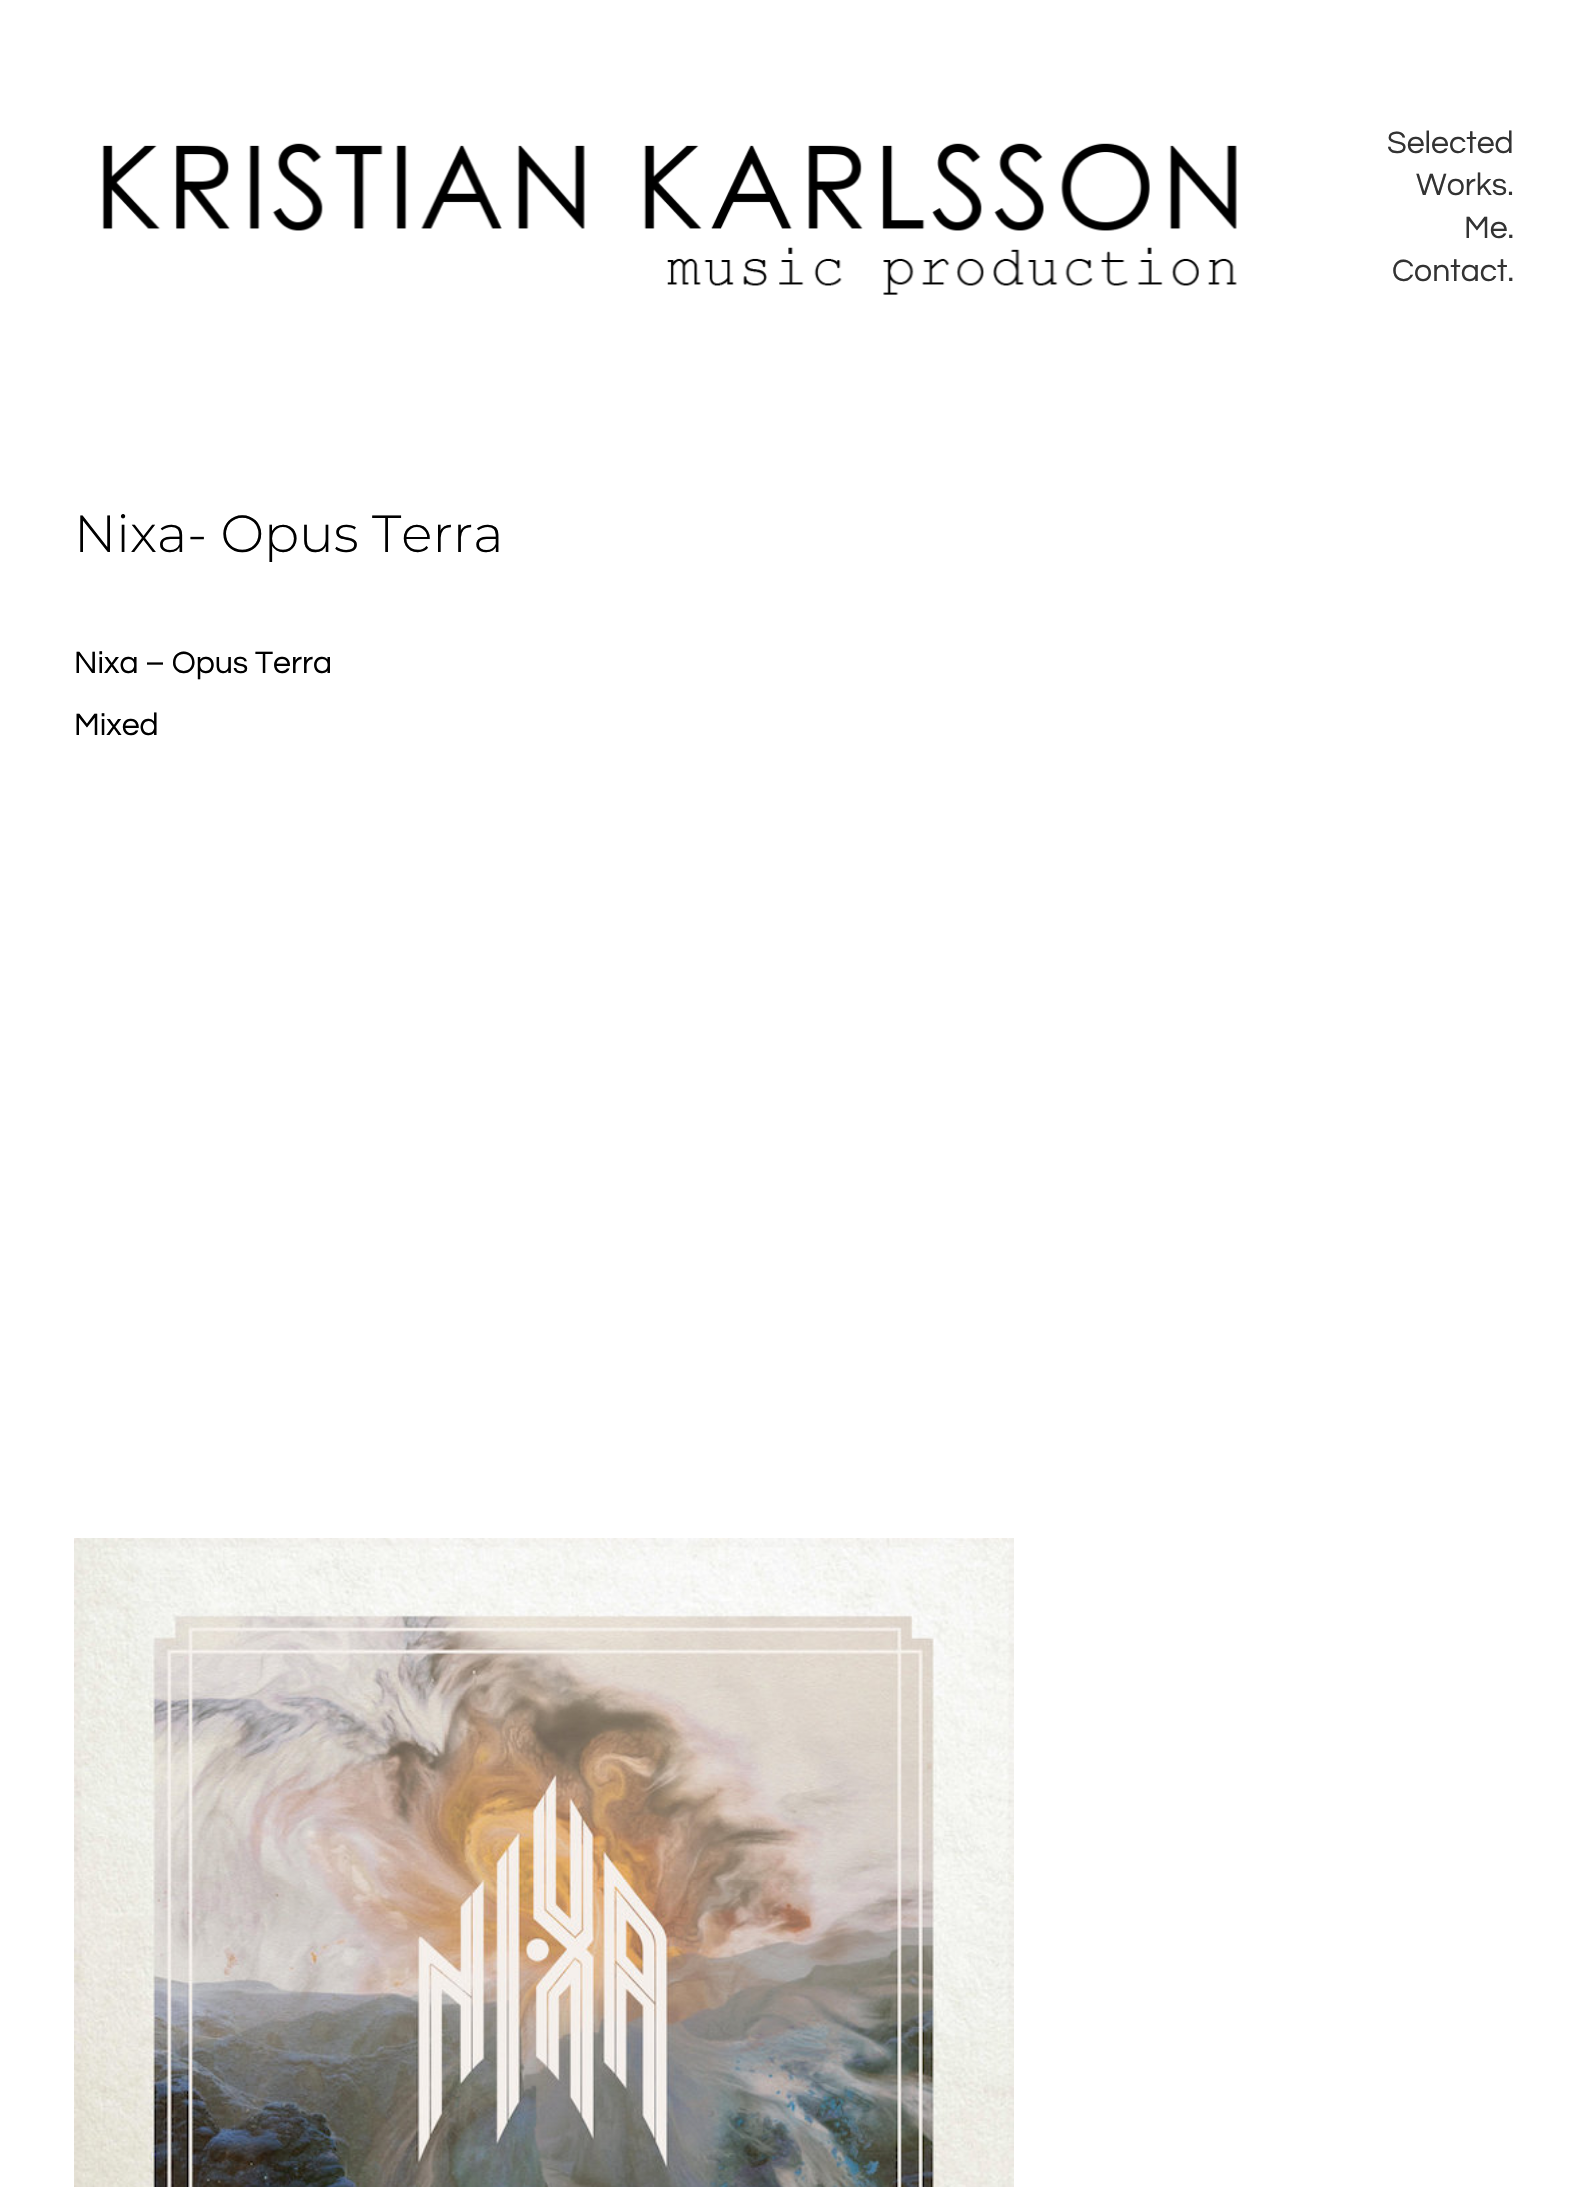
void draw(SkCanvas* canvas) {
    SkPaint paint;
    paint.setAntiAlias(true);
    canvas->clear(0xFFFFFFFF);
    canvas->drawImageRect(SkImages::DeferredFromEncodedData(SkData::MakeFromFileName("img1.png")), SkRect::MakeXYWH(102, 143, 1135, 152), SkSamplingOptions());
    SkFont font1(fontMgr->matchFamilyStyle("Questrial", SkFontStyle::Normal()), 32);
    font1.setSubpixel(true);
    paint.setColor(0xFF333333);
    canvas->drawString("Selected", 1387, 153, font1, paint);
    canvas->drawString("Works.", 1416, 195, font1, paint);
    canvas->drawString("Me.", 1464, 238, font1, paint);
    canvas->drawString("Contact.", 1392, 281, font1, paint);
    SkFont font2(fontMgr->matchFamilyStyle("Montserrat", SkFontStyle(300, SkFontStyle::kNormal_Width, SkFontStyle::kUpright_Slant)), 52);
    font2.setSubpixel(true);
    paint.setColor(0xFF000000);
    canvas->drawString("Nixa- Opus Terra", 74, 552, font2, paint);
    canvas->drawString("Nixa – Opus Terra", 74, 673, font1, paint);
    canvas->drawString("Mixed", 74, 735, font1, paint);
    canvas->drawImageRect(SkImages::DeferredFromEncodedData(SkData::MakeFromFileName("img2.png")), SkRect::MakeXYWH(74, 1538, 940, 649), SkSamplingOptions());
}
